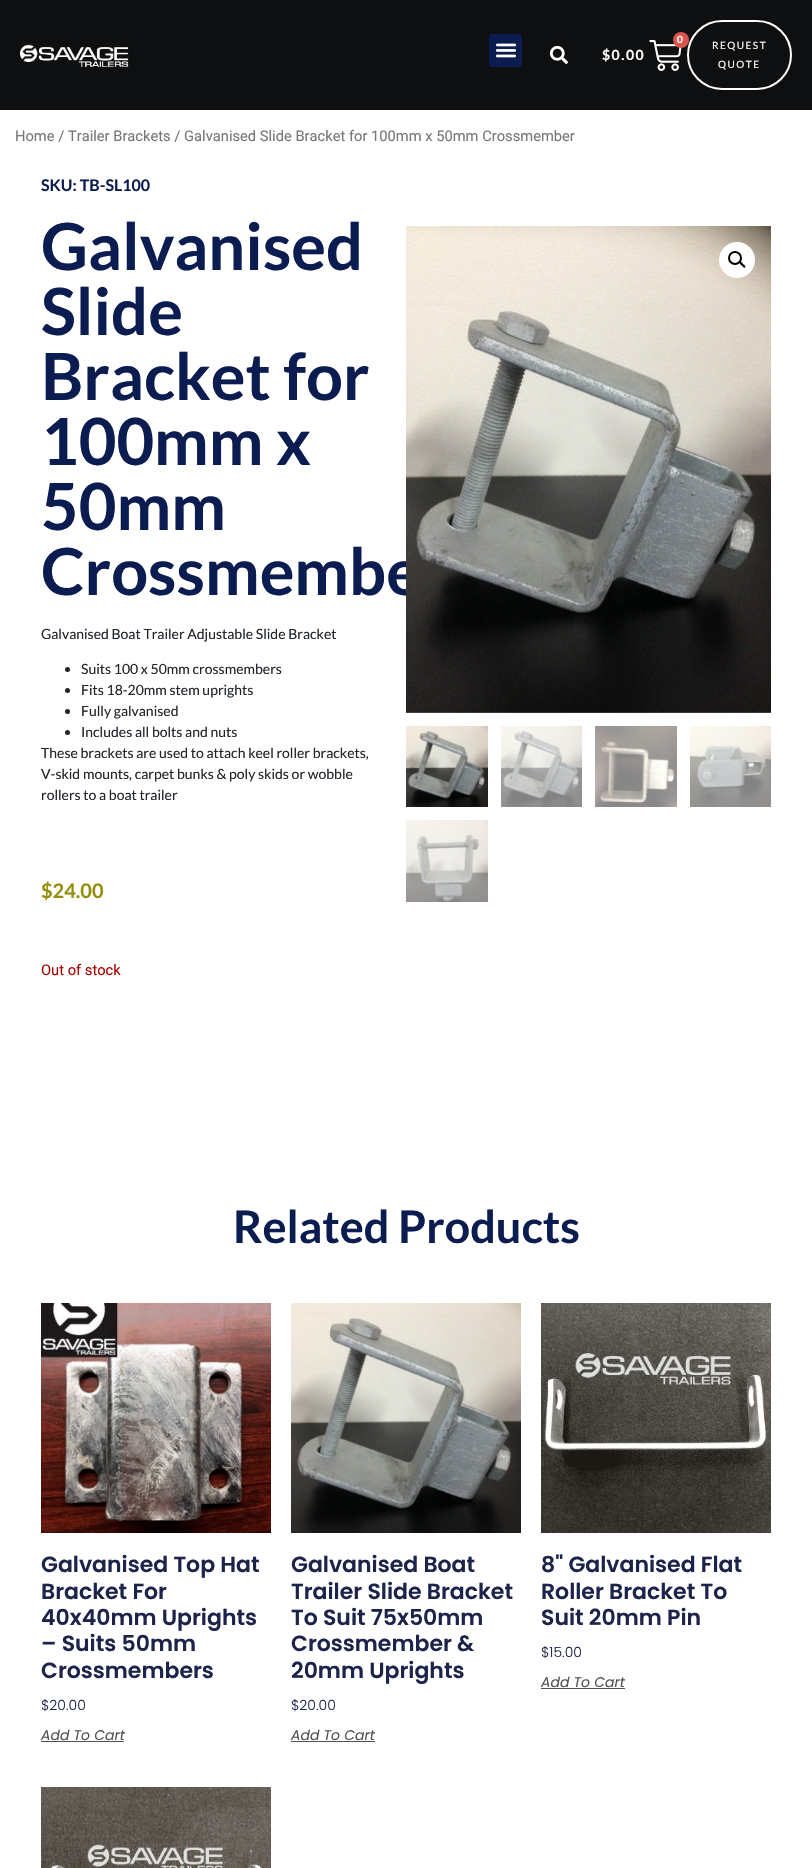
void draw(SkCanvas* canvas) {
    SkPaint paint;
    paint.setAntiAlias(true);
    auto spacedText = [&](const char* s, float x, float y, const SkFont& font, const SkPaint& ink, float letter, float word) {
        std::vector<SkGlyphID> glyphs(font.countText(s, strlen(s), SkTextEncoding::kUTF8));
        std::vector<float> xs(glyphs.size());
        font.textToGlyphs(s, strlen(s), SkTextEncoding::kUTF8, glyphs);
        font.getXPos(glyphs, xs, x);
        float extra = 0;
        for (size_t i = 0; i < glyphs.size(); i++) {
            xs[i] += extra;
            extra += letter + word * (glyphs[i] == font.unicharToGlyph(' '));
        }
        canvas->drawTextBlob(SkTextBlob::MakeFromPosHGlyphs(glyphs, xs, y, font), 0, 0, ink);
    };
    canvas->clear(0xFFFFFFFF);
    paint.setColor(0xFF0D0F10);
    canvas->drawRect(SkRect::MakeXYWH(0, 0, 812, 110), paint);
    canvas->drawImageRect(SkImages::DeferredFromEncodedData(SkData::MakeFromFileName("img1.png")), SkRect::MakeXYWH(20, 44, 109, 23), SkSamplingOptions());
    paint.setColor(0xFF0B1C51);
    canvas->drawRoundRect(SkRect::MakeXYWH(489, 34, 33, 33), 3, 3, paint);
    canvas->drawImageRect(SkImages::DeferredFromEncodedData(SkData::MakeFromFileName("img2.png")), SkRect::MakeXYWH(495, 43, 22, 15), SkSamplingOptions());
    canvas->drawImageRect(SkImages::DeferredFromEncodedData(SkData::MakeFromFileName("img3.png")), SkRect::MakeXYWH(550, 46, 18, 18), SkSamplingOptions());
    canvas->drawImageRect(SkImages::DeferredFromEncodedData(SkData::MakeFromFileName("img4.png")), SkRect::MakeXYWH(649, 40, 33, 31), SkSamplingOptions());
    paint.setColor(0xFFD9534F);
    canvas->drawCircle(681, 40, 8, paint);
    SkFont font1(fontMgr->matchFamilyStyle("Lato", SkFontStyle::Bold()), 10);
    font1.setSubpixel(true);
    paint.setColor(0xFFFFFFFF);
    spacedText("0", 677, 43, font1, paint, 1.5f, 0);
    SkFont font2(fontMgr->matchFamilyStyle("Lato", SkFontStyle::Bold()), 14);
    font2.setSubpixel(true);
    spacedText("$0.00", 602, 60, font2, paint, 1.5f, 0);
    paint.setStyle(SkPaint::kStroke_Style);
    paint.setStrokeWidth(2);
    canvas->drawRoundRect(SkRect::MakeXYWH(688, 21, 103, 68), 34, 34, paint);
    SkFont font3(fontMgr->matchFamilyStyle("Lato", SkFontStyle::Normal()), 10);
    font3.setSubpixel(true);
    paint.setStyle(SkPaint::kFill_Style);
    spacedText("REQUEST", 712, 49, font3, paint, 1.5f, 0);
    spacedText("QUOTE", 718, 68, font3, paint, 1.5f, 0);
    SkFont font4(fontMgr->matchFamilyStyle("Roboto", SkFontStyle::Normal()), 14.7f);
    font4.setSubpixel(true);
    paint.setColor(0xFF767676);
    canvas->drawString("Home / Trailer Brackets / Galvanised Slide Bracket for 100mm x 50mm Crossmember", 15, 141, font4, paint);
    SkFont font5(fontMgr->matchFamilyStyle("Lato", SkFontStyle::Bold()), 16);
    font5.setSubpixel(true);
    paint.setColor(0xFF0B1C51);
    canvas->drawString("SKU: TB-SL100", 41, 191, font5, paint);
    SkFont font6(fontMgr->matchFamilyStyle("Lato", SkFontStyle::Bold()), 65);
    font6.setSubpixel(true);
    canvas->drawString("Galvanised", 41, 270, font6, paint);
    canvas->drawString("Slide", 41, 335, font6, paint);
    canvas->drawString("Bracket for", 41, 400, font6, paint);
    canvas->drawString("100mm x", 41, 465, font6, paint);
    canvas->drawString("50mm", 41, 530, font6, paint);
    canvas->drawString("Crossmembe", 41, 595, font6, paint);
    SkFont font7(fontMgr->matchFamilyStyle("Lato", SkFontStyle::Normal()), 14);
    font7.setSubpixel(true);
    paint.setColor(0xFF212529);
    canvas->drawString("Galvanised Boat Trailer Adjustable Slide Bracket", 41, 639, font7, paint);
    canvas->drawCircle(67.5f, 669.5f, 2.5f, paint);
    canvas->drawString("Suits 100 x 50mm crossmembers", 81, 674, font7, paint);
    canvas->drawCircle(67.5f, 690.5f, 2.5f, paint);
    canvas->drawString("Fits 18-20mm stem uprights", 81, 695, font7, paint);
    canvas->drawCircle(67.5f, 711.5f, 2.5f, paint);
    canvas->drawString("Fully galvanised", 81, 716, font7, paint);
    canvas->drawCircle(67.5f, 732.5f, 2.5f, paint);
    canvas->drawString("Includes all bolts and nuts", 81, 737, font7, paint);
    canvas->drawString("These brackets are used to attach keel roller brackets,", 41, 758, font7, paint);
    canvas->drawString("V-skid mounts, carpet bunks & poly skids or wobble", 41, 779, font7, paint);
    canvas->drawString("rollers to a boat trailer", 41, 800, font7, paint);
    SkFont font8(fontMgr->matchFamilyStyle("Lato", SkFontStyle::Bold()), 20);
    font8.setSubpixel(true);
    paint.setColor(0xFF958E09);
    canvas->drawString("$24.00", 41, 898, font8, paint);
    paint.setColor(0xFFAA0000);
    canvas->drawString("Out of stock", 41, 975, font4, paint);
    canvas->drawImageRect(SkImages::DeferredFromEncodedData(SkData::MakeFromFileName("img5.png")), SkRect::MakeXYWH(406, 226, 365, 487), SkSamplingOptions());
    paint.setColor(0xFFFFFFFF);
    canvas->drawCircle(737, 260, 18, paint);
    paint.setStyle(SkPaint::kStroke_Style);
    paint.setColor(0xFF000000);
    canvas->drawCircle(735, 258, 6, paint);
    paint.setStyle(SkPaint::kFill_Style);
    canvas->drawPath(SkPathBuilder().moveTo(739.5f, 262).cubicTo(741, 260.5f, 742.5f, 263.5f, 743, 264).cubicTo(743.5f, 264.5f, 746.5f, 266.5f, 745, 267.5f).cubicTo(744, 268.5f, 742.5f, 266, 741.5f, 265.5f).cubicTo(741, 264.5f, 738.5f, 263, 739.5f, 262).close().detach(), paint);
    canvas->drawImageRect(SkImages::DeferredFromEncodedData(SkData::MakeFromFileName("img6.png")), SkRect::MakeXYWH(406, 726, 82, 81), SkSamplingOptions());
    canvas->drawImageRect(SkImages::DeferredFromEncodedData(SkData::MakeFromFileName("img7.png")), SkRect::MakeXYWH(501, 726, 81, 81), SkSamplingOptions());
    canvas->drawImageRect(SkImages::DeferredFromEncodedData(SkData::MakeFromFileName("img8.png")), SkRect::MakeXYWH(595, 726, 82, 81), SkSamplingOptions());
    canvas->drawImageRect(SkImages::DeferredFromEncodedData(SkData::MakeFromFileName("img9.png")), SkRect::MakeXYWH(690, 726, 81, 81), SkSamplingOptions());
    canvas->drawImageRect(SkImages::DeferredFromEncodedData(SkData::MakeFromFileName("img10.png")), SkRect::MakeXYWH(406, 820, 82, 82), SkSamplingOptions());
    SkFont font9(fontMgr->matchFamilyStyle("Lato", SkFontStyle::Bold()), 45);
    font9.setSubpixel(true);
    paint.setColor(0xFF0B1C51);
    canvas->drawString("Related Products", 233, 1243, font9, paint);
    canvas->drawImageRect(SkImages::DeferredFromEncodedData(SkData::MakeFromFileName("img11.png")), SkRect::MakeXYWH(41, 1303, 230, 230), SkSamplingOptions());
    SkFont font10(fontMgr->matchFamilyStyle("Poppins", SkFontStyle(600, SkFontStyle::kNormal_Width, SkFontStyle::kUpright_Slant)), 22);
    font10.setSubpixel(true);
    paint.setColor(0xFF1C244B);
    canvas->drawString("Galvanised Top Hat", 41, 1572, font10, paint);
    canvas->drawString("Bracket For", 41, 1599, font10, paint);
    canvas->drawString("40x40mm Uprights", 41, 1625, font10, paint);
    canvas->drawString("– Suits 50mm", 41, 1651, font10, paint);
    canvas->drawString("Crossmembers", 41, 1678, font10, paint);
    SkFont font11(fontMgr->matchFamilyStyle("Poppins", SkFontStyle(300, SkFontStyle::kNormal_Width, SkFontStyle::kUpright_Slant)), 14);
    font11.setSubpixel(true);
    canvas->drawString("$20.00", 41, 1710, font11, paint);
    SkFont font12(fontMgr->matchFamilyStyle("Poppins", SkFontStyle::Italic()), 14);
    font12.setSubpixel(true);
    paint.setColor(0xFF515151);
    canvas->drawString("Add To Cart", 41, 1740, font12, paint);
    canvas->drawRect(SkRect::MakeXYWH(41, 1741, 83, 1), paint);
    canvas->drawImageRect(SkImages::DeferredFromEncodedData(SkData::MakeFromFileName("img12.png")), SkRect::MakeXYWH(291, 1303, 230, 230), SkSamplingOptions());
    paint.setColor(0xFF1C244B);
    canvas->drawString("Galvanised Boat", 291, 1572, font10, paint);
    canvas->drawString("Trailer Slide Bracket", 291, 1599, font10, paint);
    canvas->drawString("To Suit 75x50mm", 291, 1625, font10, paint);
    canvas->drawString("Crossmember &", 291, 1651, font10, paint);
    canvas->drawString("20mm Uprights", 291, 1678, font10, paint);
    canvas->drawString("$20.00", 291, 1710, font11, paint);
    paint.setColor(0xFF515151);
    canvas->drawString("Add To Cart", 291, 1740, font12, paint);
    canvas->drawRect(SkRect::MakeXYWH(291, 1741, 84, 1), paint);
    canvas->drawImageRect(SkImages::DeferredFromEncodedData(SkData::MakeFromFileName("img13.png")), SkRect::MakeXYWH(541, 1303, 230, 230), SkSamplingOptions());
    paint.setColor(0xFF1C244B);
    canvas->drawString("8\" Galvanised Flat", 541, 1572, font10, paint);
    canvas->drawString("Roller Bracket To", 541, 1599, font10, paint);
    canvas->drawString("Suit 20mm Pin", 541, 1625, font10, paint);
    canvas->drawString("$15.00", 541, 1657, font11, paint);
    paint.setColor(0xFF515151);
    canvas->drawString("Add To Cart", 541, 1687, font12, paint);
    canvas->drawRect(SkRect::MakeXYWH(541, 1688, 84, 1), paint);
    canvas->drawImageRect(SkImages::DeferredFromEncodedData(SkData::MakeFromFileName("img14.png")), SkRect::MakeXYWH(41, 1787, 230, 81), SkSamplingOptions());
}
